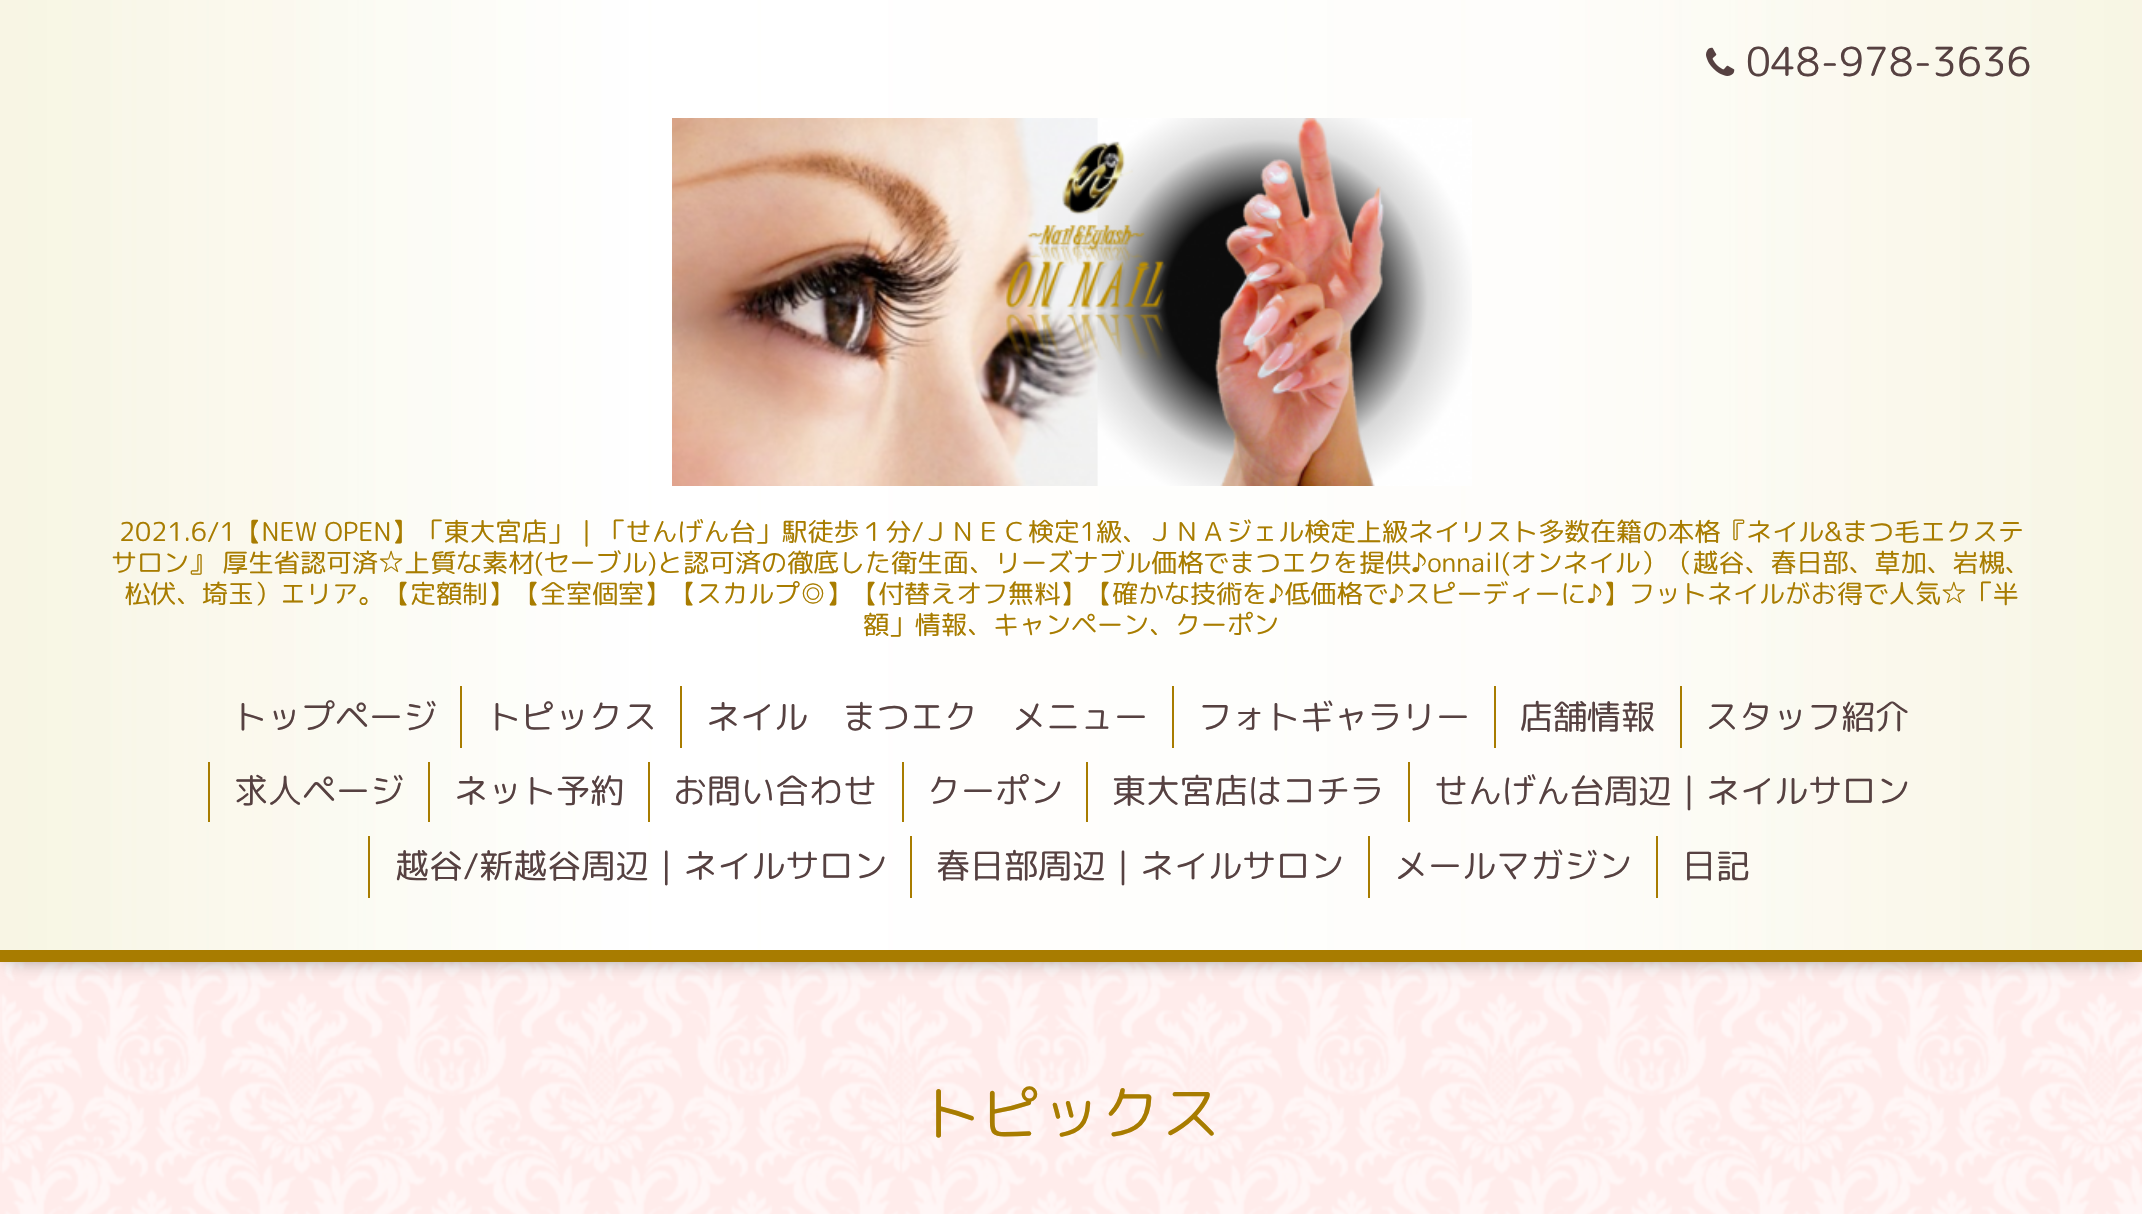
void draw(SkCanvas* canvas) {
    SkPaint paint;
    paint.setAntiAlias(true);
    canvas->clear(0xFFFFECEB);
    canvas->drawImageRect(SkImages::DeferredFromEncodedData(SkData::MakeFromFileName("img1.png")), SkRect::MakeXYWH(0, 962, 2142, 252), SkSamplingOptions());
    paint.setColor(0x99000000);
    paint.setMaskFilter(SkMaskFilter::MakeBlur(kNormal_SkBlurStyle, 10));
    canvas->drawRect(SkRect::MakeXYWH(8, 10, 2126, 946), paint);
    paint.setMaskFilter(nullptr);
    canvas->drawImageRect(SkImages::DeferredFromEncodedData(SkData::MakeFromFileName("img2.png")), SkRect::MakeXYWH(0, 0, 2142, 950), SkSamplingOptions());
    paint.setColor(0xFFA87C00);
    canvas->drawRect(SkRect::MakeXYWH(0, 950, 2142, 12), paint);
    canvas->drawImageRect(SkImages::DeferredFromEncodedData(SkData::MakeFromFileName("img3.png")), SkRect::MakeXYWH(1706, 47, 29, 29), SkSamplingOptions());
    SkFont font1(fontMgr->matchFamilyStyle("Rounded Mplus 1c", SkFontStyle::Normal()), 40);
    font1.setSubpixel(true);
    paint.setColor(0xFF564141);
    canvas->drawString("048-978-3636", 1746, 76, font1, paint);
    canvas->drawImageRect(SkImages::DeferredFromEncodedData(SkData::MakeFromFileName("img4.png")), SkRect::MakeXYWH(672, 118, 800, 368), SkSamplingOptions());
    SkFont font2(fontMgr->matchFamilyStyle("Rounded Mplus 1c", SkFontStyle::Normal()), 26);
    font2.setSubpixel(true);
    paint.setColor(0xFFA87C00);
    canvas->drawString("2021.6/1【NEW OPEN】「東大宮店」｜「せんげん台」駅徒歩１分/ＪＮＥＣ検定1級、ＪＮＡジェル検定上級ネイリスト多数在籍の本格『ネイル&まつ毛エクステ", 119, 541, font2, paint);
    canvas->drawString("サロン』 厚生省認可済☆上質な素材(セーブル)と認可済の徹底した衛生面、リーズナブル価格でまつエクを提供♪onnail(オンネイル）（越谷、春日部、草加、岩槻、", 111, 572, font2, paint);
    canvas->drawString("松伏、埼玉）エリア。【定額制】【全室個室】【スカルプ◎】【付替えオフ無料】【確かな技術を♪低価格で♪スピーディーに♪】フットネイルがお得で人気☆「半", 124, 603, font2, paint);
    canvas->drawString("額」情報、キャンペーン、クーポン", 863, 634, font2, paint);
    SkFont font3(fontMgr->matchFamilyStyle("Rounded Mplus 1c", SkFontStyle::Normal()), 34);
    font3.setSubpixel(true);
    paint.setColor(0xFF564141);
    canvas->drawString("トップページ", 233, 729, font3, paint);
    paint.setColor(0xFFA87C00);
    canvas->drawRect(SkRect::MakeXYWH(460, 686, 2, 62), paint);
    paint.setColor(0xFF564141);
    canvas->drawString("トピックス", 487, 729, font3, paint);
    paint.setColor(0xFFA87C00);
    canvas->drawRect(SkRect::MakeXYWH(680, 686, 2, 62), paint);
    paint.setColor(0xFF564141);
    canvas->drawString("ネイル　まつエク　メニュー", 706, 729, font3, paint);
    paint.setColor(0xFFA87C00);
    canvas->drawRect(SkRect::MakeXYWH(1172, 686, 2, 62), paint);
    paint.setColor(0xFF564141);
    canvas->drawString("フォトギャラリー", 1198, 729, font3, paint);
    paint.setColor(0xFFA87C00);
    canvas->drawRect(SkRect::MakeXYWH(1494, 686, 2, 62), paint);
    paint.setColor(0xFF564141);
    canvas->drawString("店舗情報", 1519, 729, font3, paint);
    paint.setColor(0xFFA87C00);
    canvas->drawRect(SkRect::MakeXYWH(1680, 686, 2, 62), paint);
    paint.setColor(0xFF564141);
    canvas->drawString("スタッフ紹介", 1705, 729, font3, paint);
    paint.setColor(0xFFA87C00);
    canvas->drawRect(SkRect::MakeXYWH(208, 762, 2, 60), paint);
    paint.setColor(0xFF564141);
    canvas->drawString("求人ページ", 234, 803, font3, paint);
    paint.setColor(0xFFA87C00);
    canvas->drawRect(SkRect::MakeXYWH(428, 762, 2, 60), paint);
    paint.setColor(0xFF564141);
    canvas->drawString("ネット予約", 454, 803, font3, paint);
    paint.setColor(0xFFA87C00);
    canvas->drawRect(SkRect::MakeXYWH(648, 762, 2, 60), paint);
    paint.setColor(0xFF564141);
    canvas->drawString("お問い合わせ", 673, 803, font3, paint);
    paint.setColor(0xFFA87C00);
    canvas->drawRect(SkRect::MakeXYWH(902, 762, 2, 60), paint);
    paint.setColor(0xFF564141);
    canvas->drawString("クーポン", 927, 803, font3, paint);
    paint.setColor(0xFFA87C00);
    canvas->drawRect(SkRect::MakeXYWH(1086, 762, 2, 60), paint);
    paint.setColor(0xFF564141);
    canvas->drawString("東大宮店はコチラ", 1112, 803, font3, paint);
    paint.setColor(0xFFA87C00);
    canvas->drawRect(SkRect::MakeXYWH(1408, 762, 2, 60), paint);
    paint.setColor(0xFF564141);
    canvas->drawString("せんげん台周辺｜ネイルサロン", 1434, 803, font3, paint);
    paint.setColor(0xFFA87C00);
    canvas->drawRect(SkRect::MakeXYWH(368, 836, 2, 62), paint);
    paint.setColor(0xFF564141);
    canvas->drawString("越谷/新越谷周辺｜ネイルサロン", 395, 878, font3, paint);
    paint.setColor(0xFFA87C00);
    canvas->drawRect(SkRect::MakeXYWH(910, 836, 2, 62), paint);
    paint.setColor(0xFF564141);
    canvas->drawString("春日部周辺｜ネイルサロン", 936, 878, font3, paint);
    paint.setColor(0xFFA87C00);
    canvas->drawRect(SkRect::MakeXYWH(1368, 836, 2, 62), paint);
    paint.setColor(0xFF564141);
    canvas->drawString("メールマガジン", 1394, 878, font3, paint);
    paint.setColor(0xFFA87C00);
    canvas->drawRect(SkRect::MakeXYWH(1656, 836, 2, 62), paint);
    paint.setColor(0xFF564141);
    canvas->drawString("日記", 1682, 878, font3, paint);
    SkFont font4(fontMgr->matchFamilyStyle("Rounded Mplus 1c", SkFontStyle::Normal()), 60);
    font4.setSubpixel(true);
    paint.setColor(0xFFA87C00);
    canvas->drawString("トピックス", 921, 1135, font4, paint);
}
